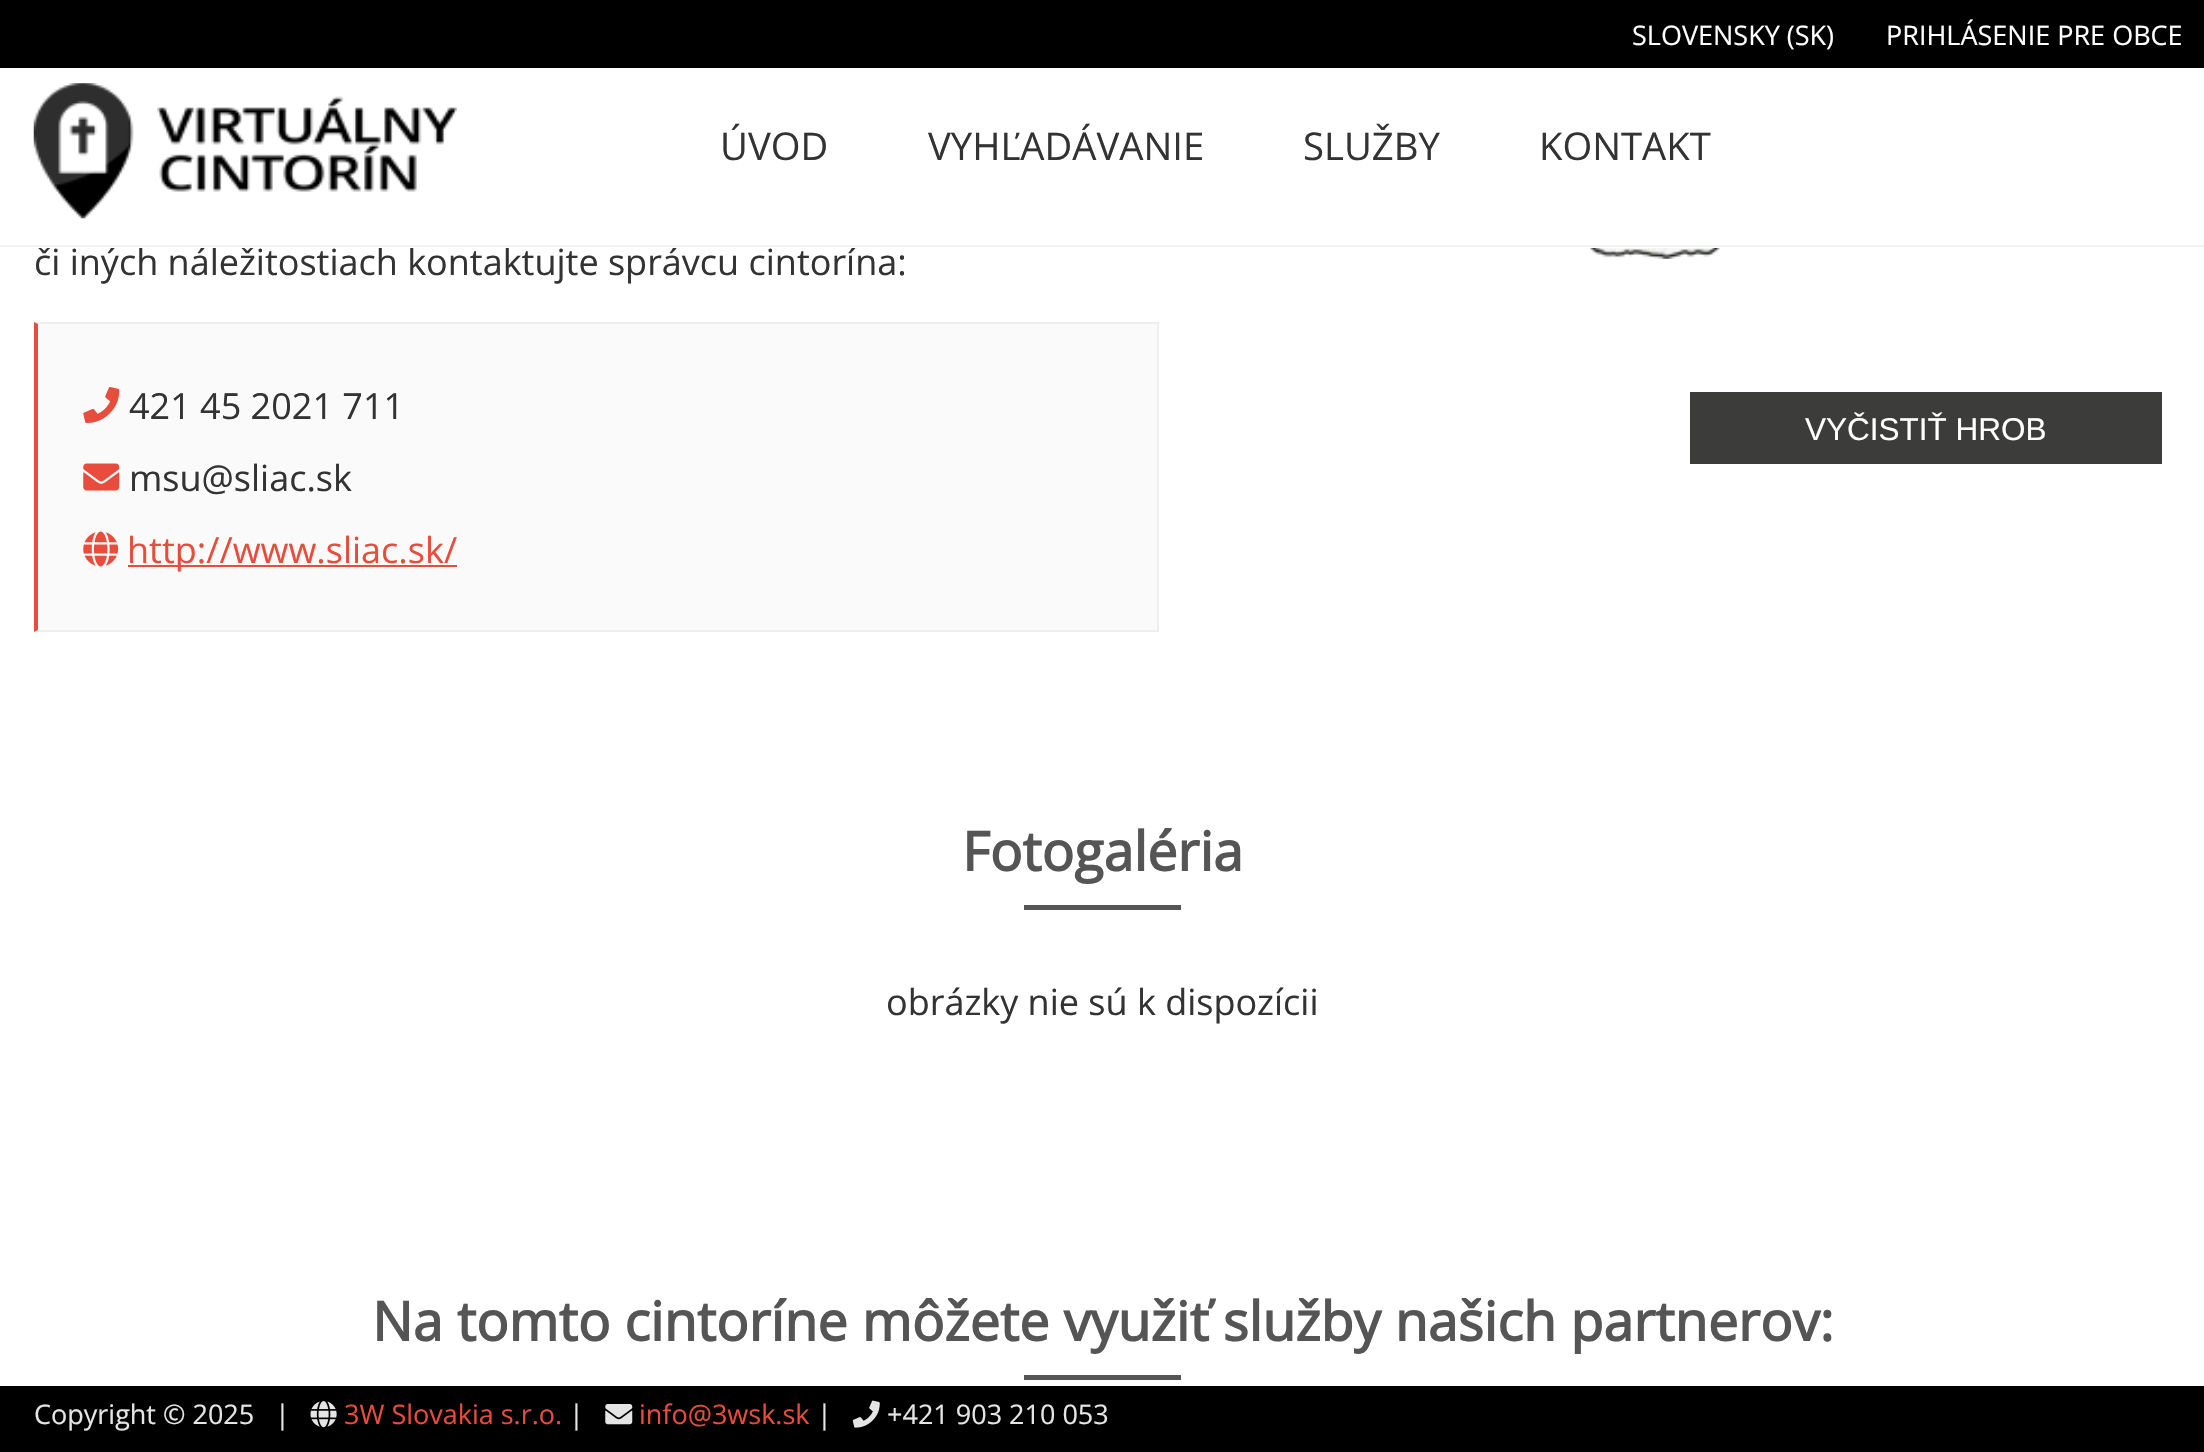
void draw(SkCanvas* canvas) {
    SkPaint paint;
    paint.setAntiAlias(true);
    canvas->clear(0xFFFFFFFF);
    SkFont font1(fontMgr->matchFamilyStyle("Open Sans", SkFontStyle::Normal()), 36);
    font1.setSubpixel(true);
    paint.setColor(0xFF333333);
    canvas->drawString("či iných náležitostiach kontaktujte správcu cintorína:", 34, 275, font1, paint);
    paint.setColor(0xFFFFFFFF);
    canvas->drawRect(SkRect::MakeXYWH(38, 247, 818, 1), paint);
    paint.setColor(0xFFF2F2F2);
    canvas->drawRect(SkRect::MakeXYWH(0, 245, 2204, 2), paint);
    paint.setColor(0xFF000000);
    canvas->drawRect(SkRect::MakeXYWH(0, 0, 2204, 68), paint);
    SkFont font2(fontMgr->matchFamilyStyle("Open Sans", SkFontStyle::Normal()), 27);
    font2.setSubpixel(true);
    paint.setColor(0xFFFFFFFF);
    canvas->drawString("SLOVENSKY (SK)", 1632, 45, font2, paint);
    canvas->drawString("PRIHLÁSENIE PRE OBCE", 1886, 45, font2, paint);
    canvas->drawImageRect(SkImages::DeferredFromEncodedData(SkData::MakeFromFileName("img1.png")), SkRect::MakeXYWH(33, 83, 424, 136), SkSamplingOptions());
    SkFont font3(fontMgr->matchFamilyStyle("Open Sans", SkFontStyle::Normal()), 38.25f);
    font3.setSubpixel(true);
    paint.setColor(0xFF333333);
    canvas->drawString("ÚVOD", 720, 160, font3, paint);
    canvas->drawString("VYHĽADÁVANIE", 928, 160, font3, paint);
    canvas->drawString("SLUŽBY", 1303, 160, font3, paint);
    canvas->drawString("KONTAKT", 1539, 160, font3, paint);
    paint.setColor(0xFFFAFAFA);
    canvas->drawRect(SkRect::MakeXYWH(38, 324, 1119, 306), paint);
    paint.setColor(0xFFEEEEEE);
    canvas->drawPath(SkPathBuilder().moveTo(34, 322).lineTo(1159, 322).lineTo(1156, 324).lineTo(38, 324).close().detach(), paint);
    canvas->drawRect(SkRect::MakeXYWH(1157, 322, 2, 310), paint);
    canvas->drawPath(SkPathBuilder().moveTo(1159, 632).lineTo(34, 632).lineTo(38, 630).lineTo(1156, 630).close().detach(), paint);
    paint.setColor(0xFFE74C3C);
    canvas->drawPath(SkPathBuilder().moveTo(34, 632).lineTo(34, 322).lineTo(38, 324).lineTo(38, 630).close().detach(), paint);
    canvas->drawImageRect(SkImages::DeferredFromEncodedData(SkData::MakeFromFileName("img2.png")), SkRect::MakeXYWH(83, 387, 37, 36), SkSamplingOptions());
    paint.setColor(0xFF333333);
    canvas->drawString("421 45 2021 711", 129, 419, font1, paint);
    canvas->drawImageRect(SkImages::DeferredFromEncodedData(SkData::MakeFromFileName("img3.png")), SkRect::MakeXYWH(83, 463, 37, 28), SkSamplingOptions());
    canvas->drawString("msu@sliac.sk", 129, 491, font1, paint);
    canvas->drawImageRect(SkImages::DeferredFromEncodedData(SkData::MakeFromFileName("img4.png")), SkRect::MakeXYWH(83, 531, 36, 36), SkSamplingOptions());
    paint.setColor(0xFFE74C3C);
    canvas->drawRect(SkRect::MakeXYWH(128, 565, 329, 2), paint);
    canvas->drawString("http://www.sliac.sk/", 127, 563, font1, paint);
    canvas->drawImageRect(SkImages::DeferredFromEncodedData(SkData::MakeFromFileName("img5.png")), SkRect::MakeXYWH(1589, 248, 131, 11), SkSamplingOptions());
    paint.setColor(0xFF3C3C3B);
    canvas->drawRect(SkRect::MakeXYWH(1690, 392, 472, 72), paint);
    SkFont font4(fontMgr->matchFamilyStyle("Liberation Sans", SkFontStyle::Normal()), 31.5f);
    font4.setSubpixel(true);
    paint.setColor(0xFFFFFFFF);
    canvas->drawString("VYČISTIŤ HROB", 1805, 440, font4, paint);
    SkFont font5(fontMgr->matchFamilyStyle("Open Sans", SkFontStyle::Bold()), 54);
    font5.setSubpixel(true);
    paint.setColor(0xFF555555);
    canvas->drawString("Fotogaléria", 962, 871, font5, paint);
    canvas->drawRect(SkRect::MakeXYWH(1024, 905, 157, 5), paint);
    paint.setColor(0xFF333333);
    canvas->drawString("obrázky nie sú k dispozícii", 886, 1015, font1, paint);
    paint.setColor(0xFF555555);
    canvas->drawString("Na tomto cintoríne môžete využiť služby našich partnerov:", 372, 1341, font5, paint);
    canvas->drawRect(SkRect::MakeXYWH(1024, 1375, 157, 5), paint);
    paint.setColor(0xFF000000);
    canvas->drawRect(SkRect::MakeXYWH(0, 1386, 2204, 66), paint);
    paint.setColor(0xFFE5E5E5);
    canvas->drawString("Copyright © 2025", 34, 1424, font2, paint);
    canvas->drawString("|", 275, 1424, font2, paint);
    canvas->drawImageRect(SkImages::DeferredFromEncodedData(SkData::MakeFromFileName("img6.png")), SkRect::MakeXYWH(310, 1401, 27, 27), SkSamplingOptions());
    paint.setColor(0xFFE74C3C);
    canvas->drawString("3W Slovakia s.r.o.", 344, 1424, font2, paint);
    paint.setColor(0xFFE5E5E5);
    canvas->drawString("|", 569, 1424, font2, paint);
    canvas->drawImageRect(SkImages::DeferredFromEncodedData(SkData::MakeFromFileName("img7.png")), SkRect::MakeXYWH(605, 1404, 28, 21), SkSamplingOptions());
    paint.setColor(0xFFE74C3C);
    canvas->drawString("info@3wsk.sk", 639, 1424, font2, paint);
    paint.setColor(0xFFE5E5E5);
    canvas->drawString("|", 817, 1424, font2, paint);
    canvas->drawImageRect(SkImages::DeferredFromEncodedData(SkData::MakeFromFileName("img8.png")), SkRect::MakeXYWH(852, 1400, 28, 28), SkSamplingOptions());
    canvas->drawString("+421 903 210 053", 887, 1424, font2, paint);
}
